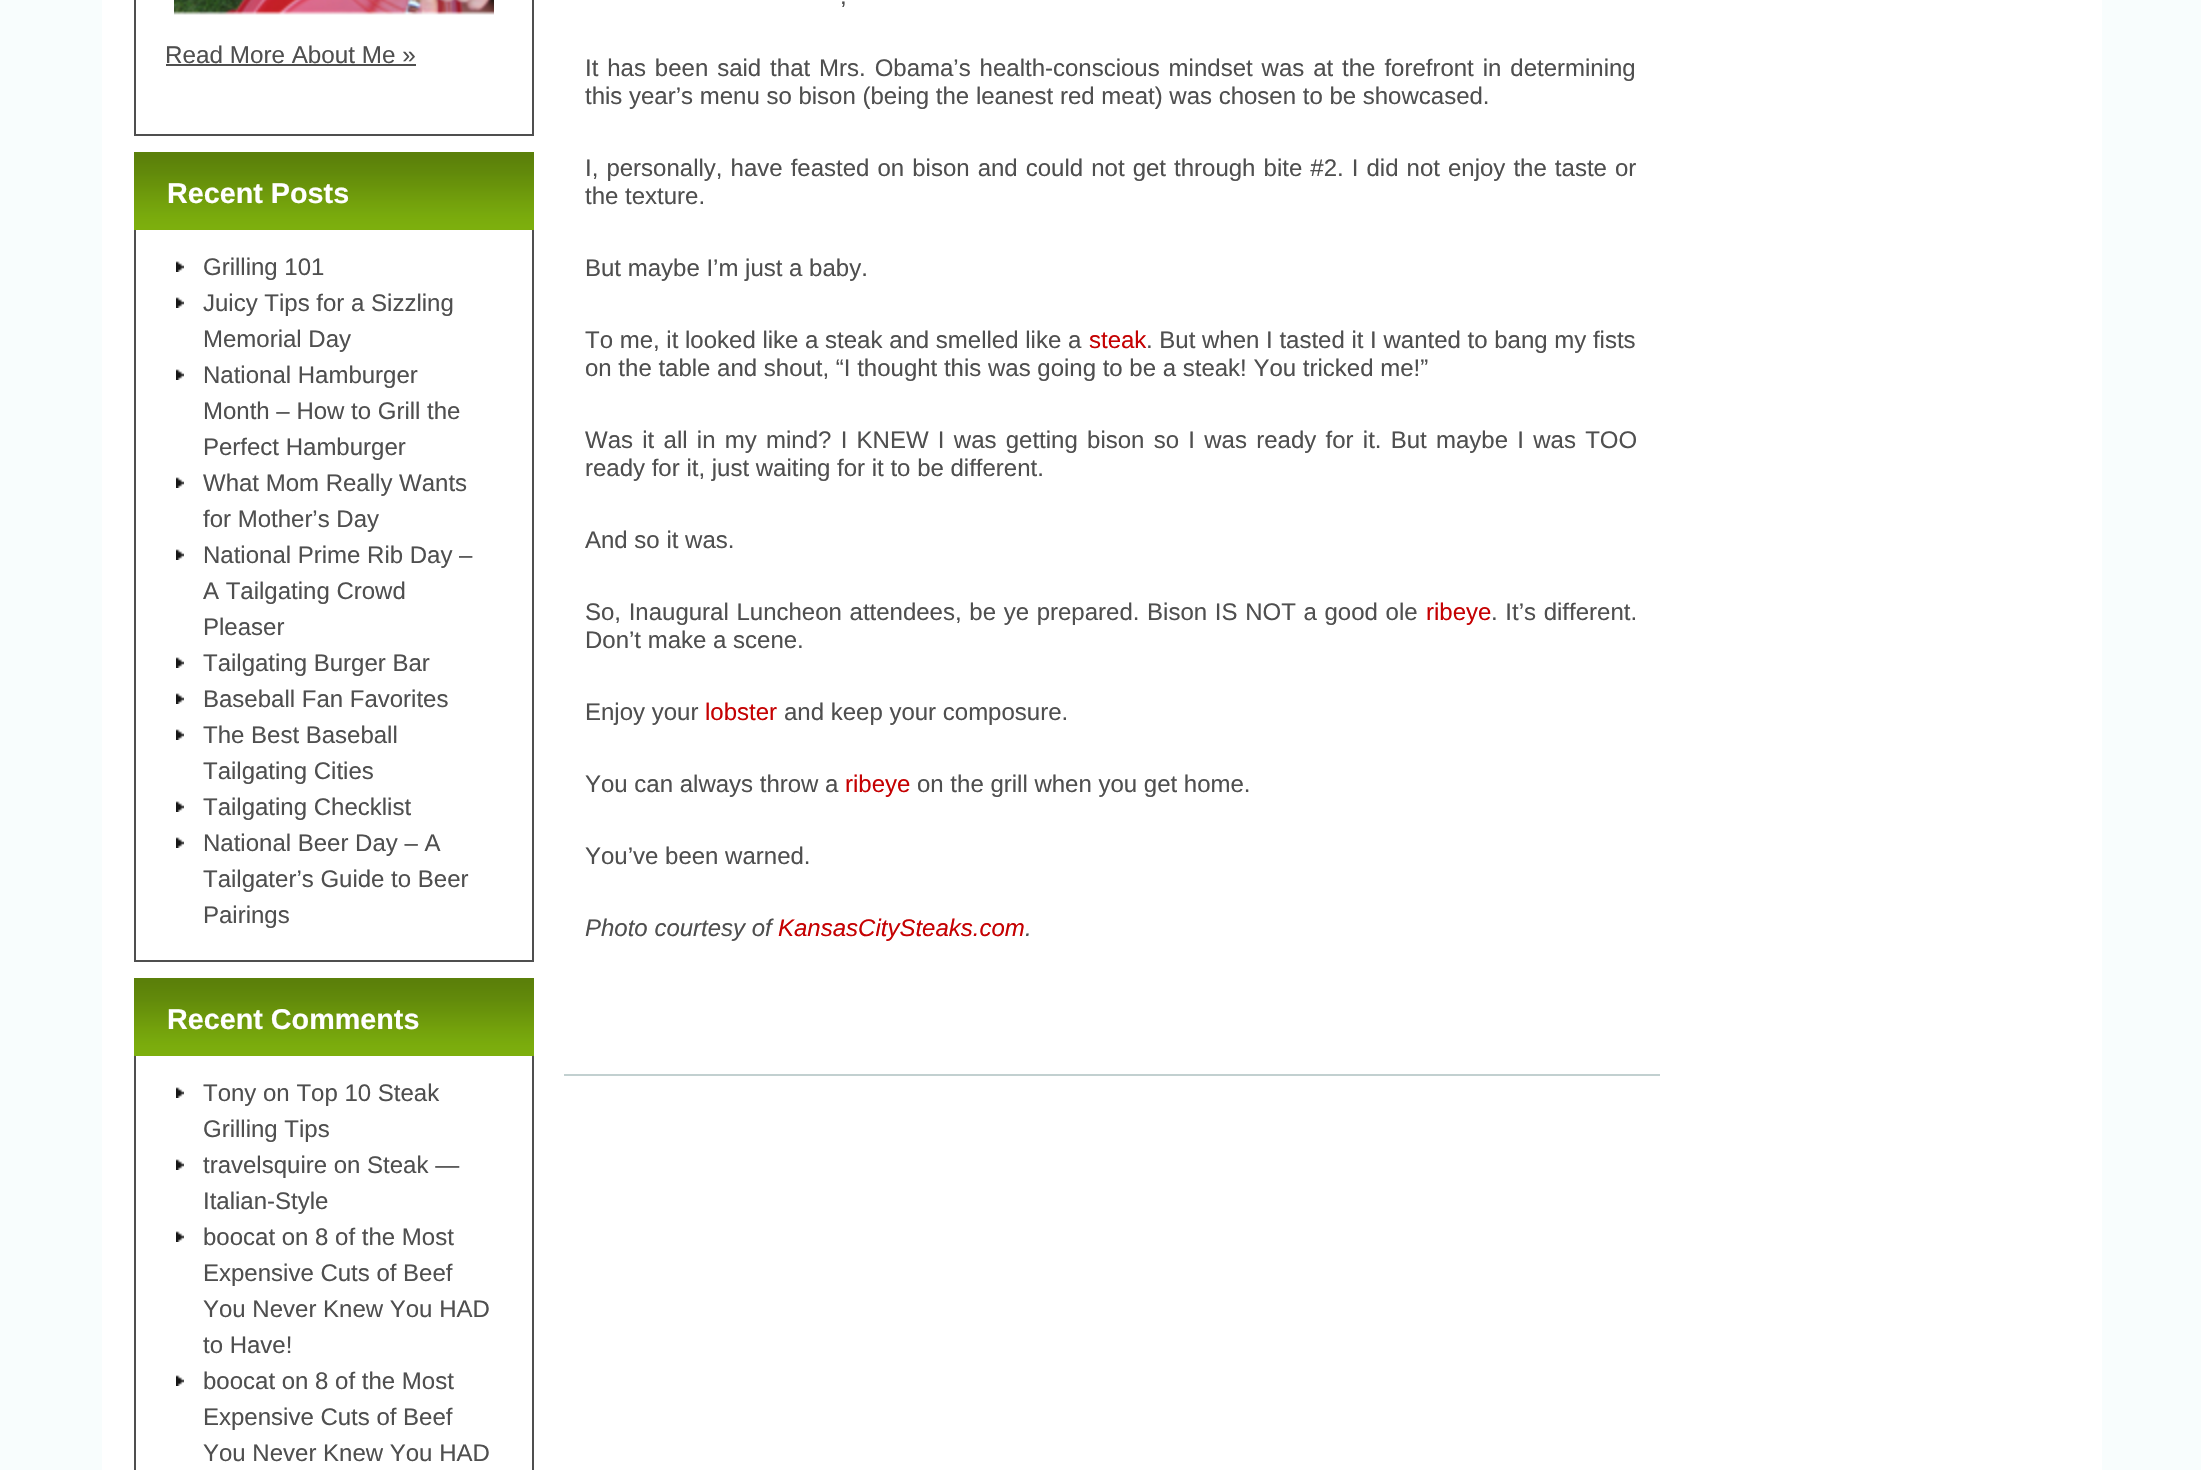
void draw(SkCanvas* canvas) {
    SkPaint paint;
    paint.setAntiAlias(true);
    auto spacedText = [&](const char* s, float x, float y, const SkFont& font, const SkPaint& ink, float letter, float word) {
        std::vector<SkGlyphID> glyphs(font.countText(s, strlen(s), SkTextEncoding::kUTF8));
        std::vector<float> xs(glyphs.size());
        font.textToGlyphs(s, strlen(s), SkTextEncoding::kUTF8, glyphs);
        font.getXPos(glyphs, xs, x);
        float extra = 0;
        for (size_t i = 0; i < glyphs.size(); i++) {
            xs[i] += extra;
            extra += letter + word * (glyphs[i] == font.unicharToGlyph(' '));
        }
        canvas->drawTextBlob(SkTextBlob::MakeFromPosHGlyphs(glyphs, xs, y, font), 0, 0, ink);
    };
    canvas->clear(0xFFF8FDFD);
    paint.setColor(0xFFFFFFFF);
    canvas->drawRect(SkRect::MakeXYWH(102, 0, 2000, 1470), paint);
    paint.setColor(0xFF4F4F4F);
    canvas->drawRect(SkRect::MakeXYWH(532, 0, 2, 136), paint);
    canvas->drawRect(SkRect::MakeXYWH(134, 134, 400, 2), paint);
    canvas->drawRect(SkRect::MakeXYWH(134, 0, 2, 136), paint);
    canvas->drawImageRect(SkImages::DeferredFromEncodedData(SkData::MakeFromFileName("img1.png")), SkRect::MakeXYWH(174, 0, 320, 15), SkSamplingOptions());
    SkFont font1(fontMgr->matchFamilyStyle("Liberation Sans", SkFontStyle::Normal()), 24.25f);
    font1.setSubpixel(true);
    canvas->drawString("Read More About Me »", 165, 63, font1, paint);
    canvas->drawRect(SkRect::MakeXYWH(166, 64, 250, 2), paint);
    canvas->drawImageRect(SkImages::DeferredFromEncodedData(SkData::MakeFromFileName("img2.png")), SkRect::MakeXYWH(134, 152, 400, 78), SkSamplingOptions());
    SkFont font2(fontMgr->matchFamilyStyle("Liberation Sans", SkFontStyle::Bold()), 28.75f);
    font2.setSubpixel(true);
    paint.setColor(0xFFFFFFFF);
    canvas->drawString("Recent Posts", 167, 203, font2, paint);
    paint.setColor(0xFF4F4F4F);
    canvas->drawRect(SkRect::MakeXYWH(532, 230, 2, 732), paint);
    canvas->drawRect(SkRect::MakeXYWH(134, 960, 400, 2), paint);
    canvas->drawRect(SkRect::MakeXYWH(134, 230, 2, 732), paint);
    canvas->drawImageRect(SkImages::DeferredFromEncodedData(SkData::MakeFromFileName("img3.png")), SkRect::MakeXYWH(176, 261, 8, 11), SkSamplingOptions());
    SkFont font3(fontMgr->matchFamilyStyle("Liberation Sans", SkFontStyle::Normal()), 24);
    font3.setSubpixel(true);
    canvas->drawString("Grilling 101", 203, 275, font3, paint);
    canvas->drawImageRect(SkImages::DeferredFromEncodedData(SkData::MakeFromFileName("img3.png")), SkRect::MakeXYWH(176, 297, 8, 11), SkSamplingOptions());
    canvas->drawString("Juicy Tips for a Sizzling", 203, 311, font3, paint);
    canvas->drawString("Memorial Day", 203, 347, font3, paint);
    canvas->drawImageRect(SkImages::DeferredFromEncodedData(SkData::MakeFromFileName("img3.png")), SkRect::MakeXYWH(176, 369, 8, 11), SkSamplingOptions());
    canvas->drawString("National Hamburger", 203, 383, font3, paint);
    canvas->drawString("Month – How to Grill the", 203, 419, font3, paint);
    canvas->drawString("Perfect Hamburger", 203, 455, font3, paint);
    canvas->drawImageRect(SkImages::DeferredFromEncodedData(SkData::MakeFromFileName("img3.png")), SkRect::MakeXYWH(176, 477, 8, 11), SkSamplingOptions());
    canvas->drawString("What Mom Really Wants", 203, 491, font3, paint);
    canvas->drawString("for Mother’s Day", 203, 527, font3, paint);
    canvas->drawImageRect(SkImages::DeferredFromEncodedData(SkData::MakeFromFileName("img3.png")), SkRect::MakeXYWH(176, 549, 8, 11), SkSamplingOptions());
    canvas->drawString("National Prime Rib Day –", 203, 563, font3, paint);
    canvas->drawString("A Tailgating Crowd", 203, 599, font3, paint);
    canvas->drawString("Pleaser", 203, 635, font3, paint);
    canvas->drawImageRect(SkImages::DeferredFromEncodedData(SkData::MakeFromFileName("img3.png")), SkRect::MakeXYWH(176, 657, 8, 11), SkSamplingOptions());
    canvas->drawString("Tailgating Burger Bar", 203, 671, font3, paint);
    canvas->drawImageRect(SkImages::DeferredFromEncodedData(SkData::MakeFromFileName("img3.png")), SkRect::MakeXYWH(176, 693, 8, 11), SkSamplingOptions());
    canvas->drawString("Baseball Fan Favorites", 203, 707, font3, paint);
    canvas->drawImageRect(SkImages::DeferredFromEncodedData(SkData::MakeFromFileName("img3.png")), SkRect::MakeXYWH(176, 729, 8, 11), SkSamplingOptions());
    canvas->drawString("The Best Baseball", 203, 743, font3, paint);
    canvas->drawString("Tailgating Cities", 203, 779, font3, paint);
    canvas->drawImageRect(SkImages::DeferredFromEncodedData(SkData::MakeFromFileName("img3.png")), SkRect::MakeXYWH(176, 801, 8, 11), SkSamplingOptions());
    canvas->drawString("Tailgating Checklist", 203, 815, font3, paint);
    canvas->drawImageRect(SkImages::DeferredFromEncodedData(SkData::MakeFromFileName("img3.png")), SkRect::MakeXYWH(176, 837, 8, 11), SkSamplingOptions());
    canvas->drawString("National Beer Day – A", 203, 851, font3, paint);
    canvas->drawString("Tailgater’s Guide to Beer", 203, 887, font3, paint);
    canvas->drawString("Pairings", 203, 923, font3, paint);
    canvas->drawImageRect(SkImages::DeferredFromEncodedData(SkData::MakeFromFileName("img2.png")), SkRect::MakeXYWH(134, 978, 400, 78), SkSamplingOptions());
    paint.setColor(0xFFFFFFFF);
    canvas->drawString("Recent Comments", 167, 1029, font2, paint);
    paint.setColor(0xFF4F4F4F);
    canvas->drawRect(SkRect::MakeXYWH(532, 1056, 2, 414), paint);
    canvas->drawRect(SkRect::MakeXYWH(134, 1056, 2, 414), paint);
    canvas->drawImageRect(SkImages::DeferredFromEncodedData(SkData::MakeFromFileName("img3.png")), SkRect::MakeXYWH(176, 1087, 8, 11), SkSamplingOptions());
    canvas->drawString("Tony on Top 10 Steak", 203, 1101, font3, paint);
    canvas->drawString("Grilling Tips", 203, 1137, font3, paint);
    canvas->drawImageRect(SkImages::DeferredFromEncodedData(SkData::MakeFromFileName("img3.png")), SkRect::MakeXYWH(176, 1159, 8, 11), SkSamplingOptions());
    canvas->drawString("travelsquire on Steak —", 203, 1173, font3, paint);
    canvas->drawString("Italian-Style", 203, 1209, font3, paint);
    canvas->drawImageRect(SkImages::DeferredFromEncodedData(SkData::MakeFromFileName("img3.png")), SkRect::MakeXYWH(176, 1231, 8, 11), SkSamplingOptions());
    canvas->drawString("boocat on 8 of the Most", 203, 1245, font3, paint);
    canvas->drawString("Expensive Cuts of Beef", 203, 1281, font3, paint);
    canvas->drawString("You Never Knew You HAD", 203, 1317, font3, paint);
    canvas->drawString("to Have!", 203, 1353, font3, paint);
    canvas->drawImageRect(SkImages::DeferredFromEncodedData(SkData::MakeFromFileName("img3.png")), SkRect::MakeXYWH(176, 1375, 8, 11), SkSamplingOptions());
    canvas->drawString("boocat on 8 of the Most", 203, 1389, font3, paint);
    canvas->drawString("Expensive Cuts of Beef", 203, 1425, font3, paint);
    canvas->drawString("You Never Knew You HAD", 203, 1461, font3, paint);
    canvas->drawString(",", 840, 4, font3, paint);
    spacedText("It has been said that Mrs. Obama’s health-conscious mindset was at the forefront in determining", 585, 76, font3, paint, 0, 2.25f);
    canvas->drawString("this year’s menu so bison (being the leanest red meat) was chosen to be showcased.", 585, 104, font3, paint);
    spacedText("I, personally, have feasted on bison and could not get through bite #2. I did not enjoy the taste or", 585, 176, font3, paint, 0, 1.4f);
    canvas->drawString("the texture.", 585, 204, font3, paint);
    canvas->drawString("But maybe I’m just a baby.", 585, 276, font3, paint);
    canvas->drawString("To me, it looked like a steak and smelled like a", 585, 348, font3, paint);
    paint.setColor(0xFFC50102);
    canvas->drawString("steak", 1089, 348, font3, paint);
    paint.setColor(0xFF4F4F4F);
    canvas->drawString(". But when I tasted it I wanted to bang my fists", 1146, 348, font3, paint);
    canvas->drawString("on the table and shout, “I thought this was going to be a steak! You tricked me!”", 585, 376, font3, paint);
    spacedText("Was it all in my mind? I KNEW I was getting bison so I was ready for it. But maybe I was TOO", 585, 448, font3, paint, 0, 2.6f);
    canvas->drawString("ready for it, just waiting for it to be different.", 585, 476, font3, paint);
    canvas->drawString("And so it was.", 585, 548, font3, paint);
    spacedText("So, Inaugural Luncheon attendees, be ye prepared. Bison IS NOT a good ole", 585, 620, font3, paint, 0, 1);
    paint.setColor(0xFFC50102);
    canvas->drawString("ribeye", 1426, 620, font3, paint);
    paint.setColor(0xFF4F4F4F);
    spacedText(". It’s different.", 1491, 620, font3, paint, 0, 1);
    canvas->drawString("Don’t make a scene.", 585, 648, font3, paint);
    canvas->drawString("Enjoy your", 585, 720, font3, paint);
    paint.setColor(0xFFC50102);
    canvas->drawString("lobster", 705, 720, font3, paint);
    paint.setColor(0xFF4F4F4F);
    canvas->drawString("and keep your composure.", 784, 720, font3, paint);
    canvas->drawString("You can always throw a", 585, 792, font3, paint);
    paint.setColor(0xFFC50102);
    canvas->drawString("ribeye", 845, 792, font3, paint);
    paint.setColor(0xFF4F4F4F);
    canvas->drawString("on the grill when you get home.", 917, 792, font3, paint);
    canvas->drawString("You’ve been warned.", 585, 864, font3, paint);
    SkFont font4(fontMgr->matchFamilyStyle("Liberation Sans", SkFontStyle::Italic()), 24);
    font4.setSubpixel(true);
    canvas->drawString("Photo courtesy of", 585, 936, font4, paint);
    paint.setColor(0xFFC50102);
    canvas->drawString("KansasCitySteaks.com", 778, 936, font4, paint);
    paint.setColor(0xFF4F4F4F);
    canvas->drawString(".", 1025, 936, font4, paint);
    paint.setColor(0xFFC2D0D0);
    canvas->drawRect(SkRect::MakeXYWH(564, 1074, 1096, 2), paint);
}
